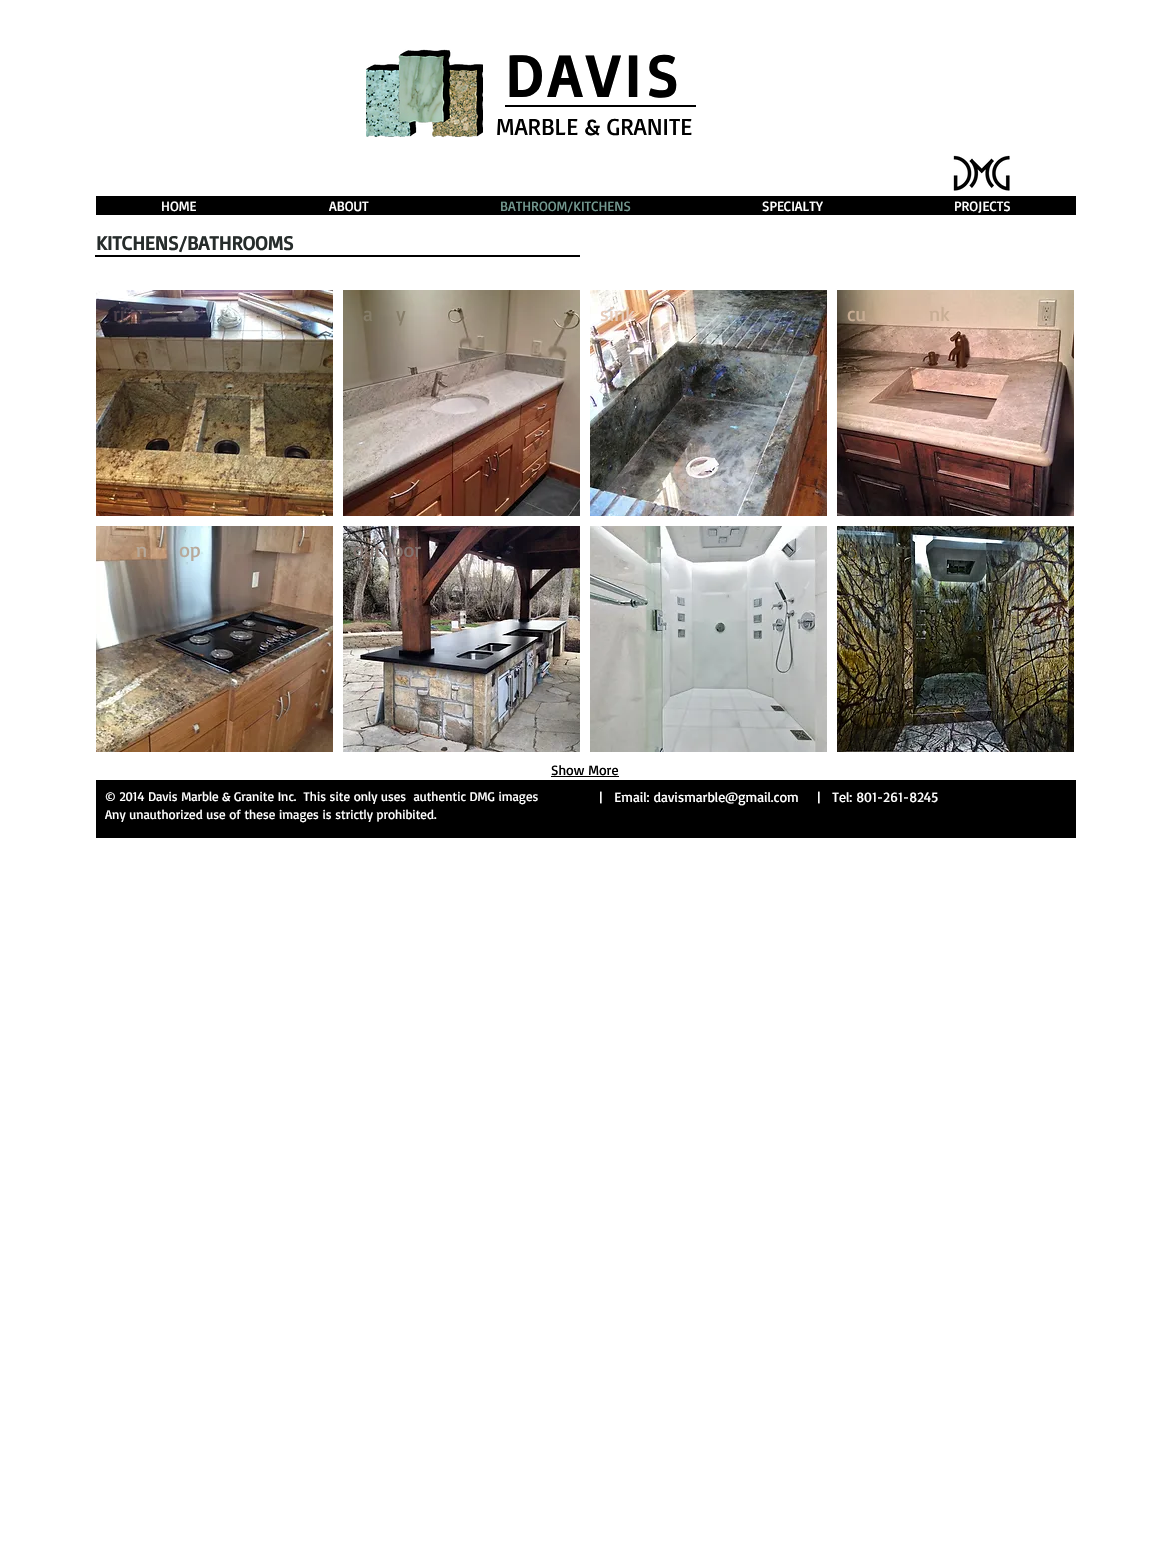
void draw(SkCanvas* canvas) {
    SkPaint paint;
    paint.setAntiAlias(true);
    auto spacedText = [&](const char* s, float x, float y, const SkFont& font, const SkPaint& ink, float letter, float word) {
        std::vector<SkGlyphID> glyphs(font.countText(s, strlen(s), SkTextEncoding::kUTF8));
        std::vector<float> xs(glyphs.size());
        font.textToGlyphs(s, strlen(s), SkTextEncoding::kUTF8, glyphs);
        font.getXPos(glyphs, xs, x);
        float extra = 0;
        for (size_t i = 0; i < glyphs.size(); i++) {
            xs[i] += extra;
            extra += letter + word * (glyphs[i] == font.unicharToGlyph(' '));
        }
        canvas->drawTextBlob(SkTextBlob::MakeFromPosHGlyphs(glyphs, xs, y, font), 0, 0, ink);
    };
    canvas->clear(0xFFFFFFFF);
    canvas->drawImageRect(SkImages::DeferredFromEncodedData(SkData::MakeFromFileName("img1.png")), SkRect::MakeXYWH(366, 49, 117, 89), SkSamplingOptions());
    SkFont font1(fontMgr->matchFamilyStyle("Basic", SkFontStyle::Bold()), 60);
    font1.setSubpixel(true);
    paint.setColor(0xFF000000);
    spacedText("DAVIS", 505, 97, font1, paint, 6, 0);
    canvas->drawRect(SkRect::MakeXYWH(505, 105, 191, 2), paint);
    SkFont font2(fontMgr->matchFamilyStyle("Basic", SkFontStyle::Normal()), 24);
    font2.setSubpixel(true);
    canvas->drawString("MARBLE & GRANITE", 496, 135, font2, paint);
    canvas->drawImageRect(SkImages::DeferredFromEncodedData(SkData::MakeFromFileName("img2.png")), SkRect::MakeXYWH(953, 155, 57, 36), SkSamplingOptions());
    canvas->drawRect(SkRect::MakeXYWH(96, 196, 980, 19), paint);
    SkFont font3(fontMgr->matchFamilyStyle("Basic", SkFontStyle::Normal()), 14);
    font3.setSubpixel(true);
    paint.setColor(0xFFFFFFFF);
    canvas->drawString("HOME", 161, 211, font3, paint);
    canvas->drawString("ABOUT", 329, 211, font3, paint);
    paint.setColor(0xFF749990);
    canvas->drawString("BATHROOM/KITCHENS", 500, 211, font3, paint);
    paint.setColor(0xFFFFFFFF);
    canvas->drawString("SPECIALTY", 762, 211, font3, paint);
    canvas->drawString("PROJECTS", 954, 211, font3, paint);
    SkFont font4(fontMgr->matchFamilyStyle("Basic", SkFontStyle::Bold()), 20);
    font4.setSubpixel(true);
    paint.setColor(0xFF262C2B);
    canvas->drawString("KITCHENS/BATHROOMS", 96, 250, font4, paint);
    paint.setColor(0xFF000000);
    canvas->drawRect(SkRect::MakeXYWH(95, 255, 485, 2), paint);
    canvas->drawImageRect(SkImages::DeferredFromEncodedData(SkData::MakeFromFileName("img3.png")), SkRect::MakeXYWH(96, 290, 237, 226), SkSamplingOptions());
    SkFont font5(fontMgr->matchFamilyStyle("Basic", SkFontStyle::Normal()), 20);
    font5.setSubpixel(true);
    paint.setColor(0xFF4A404B);
    canvas->drawString("ri", 113, 321, font5, paint);
    canvas->drawImageRect(SkImages::DeferredFromEncodedData(SkData::MakeFromFileName("img4.png")), SkRect::MakeXYWH(343, 290, 237, 226), SkSamplingOptions());
    paint.setColor(0xFF857C68);
    canvas->drawString("a", 363, 321, font5, paint);
    canvas->drawString("y", 396, 321, font5, paint);
    canvas->drawImageRect(SkImages::DeferredFromEncodedData(SkData::MakeFromFileName("img5.png")), SkRect::MakeXYWH(590, 290, 237, 226), SkSamplingOptions());
    paint.setColor(0xFFE7CDBC);
    canvas->drawString("sink", 600, 321, font5, paint);
    canvas->drawImageRect(SkImages::DeferredFromEncodedData(SkData::MakeFromFileName("img6.png")), SkRect::MakeXYWH(837, 290, 237, 226), SkSamplingOptions());
    paint.setColor(0xFFC8AD94);
    canvas->drawString("cu", 847, 321, font5, paint);
    canvas->drawString("nk", 929, 321, font5, paint);
    canvas->drawImageRect(SkImages::DeferredFromEncodedData(SkData::MakeFromFileName("img7.png")), SkRect::MakeXYWH(96, 526, 237, 226), SkSamplingOptions());
    paint.setColor(0xFFB7A99A);
    canvas->drawString("n", 136, 557, font5, paint);
    canvas->drawString("op", 179, 557, font5, paint);
    canvas->drawImageRect(SkImages::DeferredFromEncodedData(SkData::MakeFromFileName("img8.png")), SkRect::MakeXYWH(343, 526, 237, 226), SkSamplingOptions());
    paint.setColor(0xFF83736F);
    canvas->drawString("outdoor", 353, 557, font5, paint);
    canvas->drawImageRect(SkImages::DeferredFromEncodedData(SkData::MakeFromFileName("img9.png")), SkRect::MakeXYWH(590, 526, 237, 226), SkSamplingOptions());
    paint.setColor(0xFFC1C5C1);
    canvas->drawString("r", 656, 557, font5, paint);
    canvas->drawImageRect(SkImages::DeferredFromEncodedData(SkData::MakeFromFileName("img10.png")), SkRect::MakeXYWH(837, 526, 237, 226), SkSamplingOptions());
    paint.setColor(0xFF4B4C3F);
    canvas->drawString("shower", 847, 557, font5, paint);
    paint.setColor(0xFF000000);
    canvas->drawString("Show More", 551, 775, font3, paint);
    canvas->drawRect(SkRect::MakeXYWH(551, 776, 68, 1), paint);
    canvas->drawRect(SkRect::MakeXYWH(96, 780, 980, 58), paint);
    SkFont font6(fontMgr->matchFamilyStyle("Basic", SkFontStyle::Normal()), 13);
    font6.setSubpixel(true);
    paint.setColor(0xFFFFFFFF);
    canvas->drawString("© 2014 Davis Marble & Granite Inc.  This site only uses  authentic DMG images", 105, 801, font6, paint);
    canvas->drawString("Any unauthorized use of these images is strictly prohibited.", 105, 819, font6, paint);
    canvas->drawString("|   Email: davismarble@gmail.com", 599, 802, font3, paint);
    canvas->drawString("|   Tel: 801-261-8245", 817, 802, font3, paint);
}
